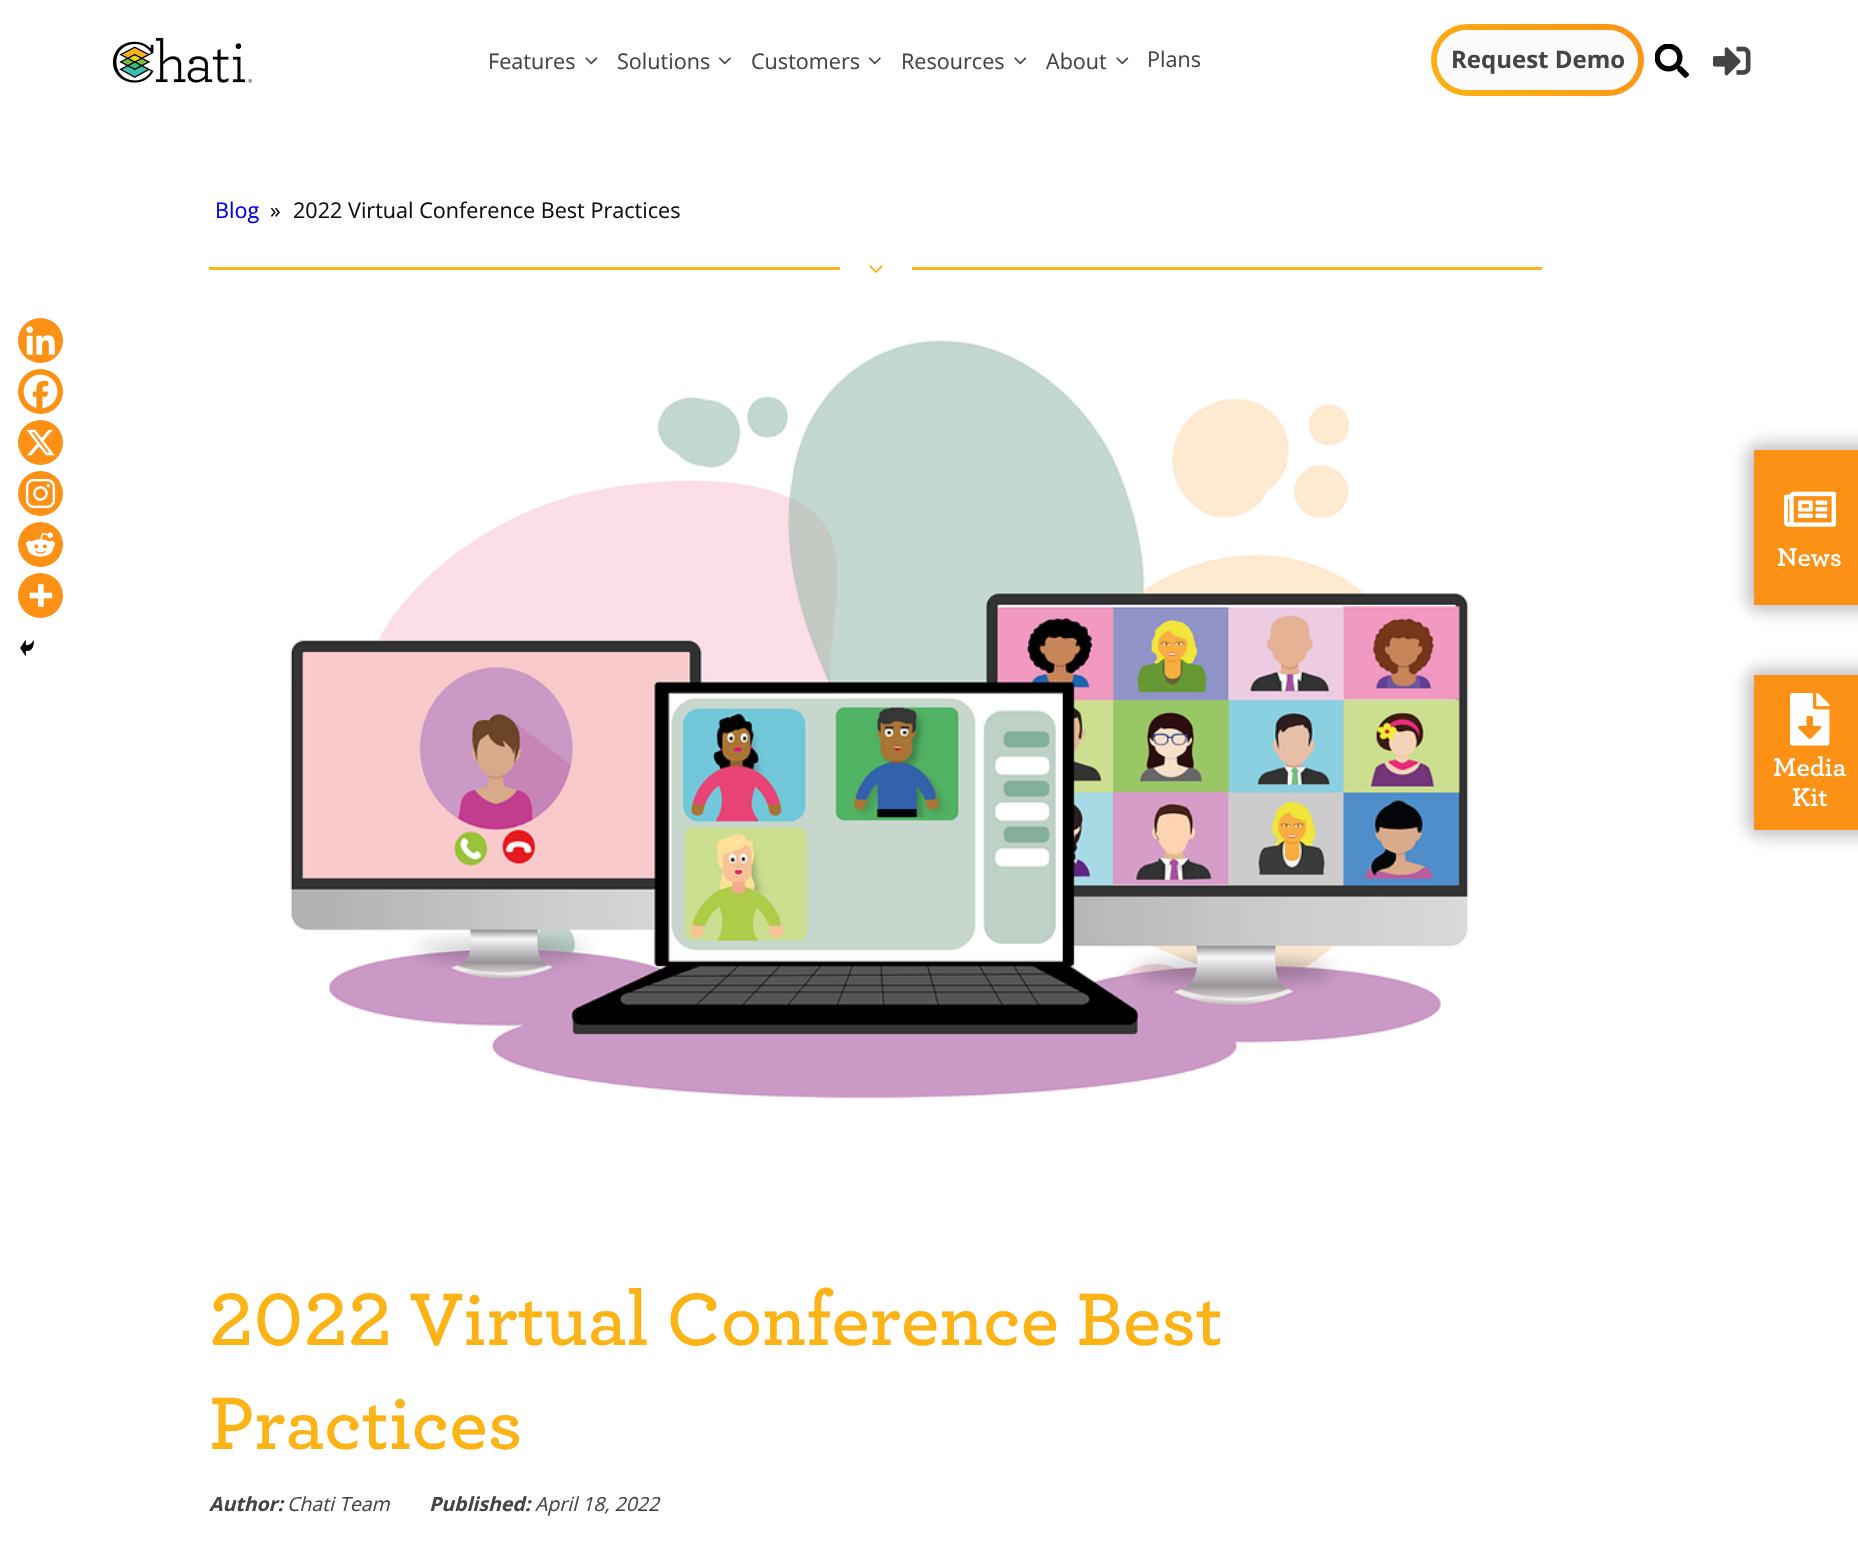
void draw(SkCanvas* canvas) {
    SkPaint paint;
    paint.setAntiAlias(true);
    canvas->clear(0xFFFFFFFF);
    canvas->drawImageRect(SkImages::DeferredFromEncodedData(SkData::MakeFromFileName("img1.png")), SkRect::MakeXYWH(112, 37, 141, 46), SkSamplingOptions());
    SkFont font1(fontMgr->matchFamilyStyle("Open Sans", SkFontStyle::Normal()), 21.6f);
    font1.setSubpixel(true);
    paint.setColor(0xFF444444);
    canvas->drawString("Features", 488, 69, font1, paint);
    canvas->drawImageRect(SkImages::DeferredFromEncodedData(SkData::MakeFromFileName("img2.png")), SkRect::MakeXYWH(585, 57, 13, 8), SkSamplingOptions());
    canvas->drawString("Solutions", 617, 69, font1, paint);
    canvas->drawImageRect(SkImages::DeferredFromEncodedData(SkData::MakeFromFileName("img3.png")), SkRect::MakeXYWH(718, 57, 13, 8), SkSamplingOptions());
    canvas->drawString("Customers", 751, 69, font1, paint);
    canvas->drawImageRect(SkImages::DeferredFromEncodedData(SkData::MakeFromFileName("img3.png")), SkRect::MakeXYWH(868, 57, 13, 8), SkSamplingOptions());
    canvas->drawString("Resources", 901, 69, font1, paint);
    canvas->drawImageRect(SkImages::DeferredFromEncodedData(SkData::MakeFromFileName("img2.png")), SkRect::MakeXYWH(1014, 57, 13, 8), SkSamplingOptions());
    canvas->drawString("About", 1046, 69, font1, paint);
    canvas->drawImageRect(SkImages::DeferredFromEncodedData(SkData::MakeFromFileName("img2.png")), SkRect::MakeXYWH(1116, 57, 13, 8), SkSamplingOptions());
    canvas->drawString("Plans", 1147, 67, font1, paint);
    {
        const SkColor colors[] = {0xFFFCB315, 0xFFFC9115};
        const float stops[] = {0, 1};
        const SkPoint ends[] = {{1466, 131}, {1609, -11}};
        paint.setShader(SkGradientShader::MakeLinear(ends, colors, stops, 2, SkTileMode::kClamp));
        paint.setAlpha(255);
    }
    canvas->drawRoundRect(SkRect::MakeXYWH(1431, 24, 213, 72), 36, 36, paint);
    paint.setShader(nullptr);
    paint.setColor(0xFFF3F3F3);
    canvas->drawRoundRect(SkRect::MakeXYWH(1437, 30, 201, 60), 30, 30, paint);
    paint.setColor(0xCCFDFDFD);
    canvas->drawRoundRect(SkRect::MakeXYWH(1437, 30, 201, 60), 30, 30, paint);
    SkFont font2(fontMgr->matchFamilyStyle("Open Sans", SkFontStyle::Bold()), 24);
    font2.setSubpixel(true);
    paint.setColor(0xFF444444);
    canvas->drawString("Request Demo", 1451, 68, font2, paint);
    canvas->drawImageRect(SkImages::DeferredFromEncodedData(SkData::MakeFromFileName("img4.png")), SkRect::MakeXYWH(1655, 44, 34, 34), SkSamplingOptions());
    canvas->drawImageRect(SkImages::DeferredFromEncodedData(SkData::MakeFromFileName("img5.png")), SkRect::MakeXYWH(1713, 46, 38, 30), SkSamplingOptions());
    paint.setColor(0xFF0000EE);
    canvas->drawString("Blog", 215, 218, font1, paint);
    paint.setColor(0xFF111111);
    canvas->drawString("»", 270, 218, font1, paint);
    canvas->drawString("2022 Virtual Conference Best Practices", 293, 218, font1, paint);
    paint.setColor(0xFFFCB315);
    canvas->drawRect(SkRect::MakeXYWH(209, 267, 631, 3), paint);
    canvas->drawImageRect(SkImages::DeferredFromEncodedData(SkData::MakeFromFileName("img6.png")), SkRect::MakeXYWH(869, 265, 14, 8), SkSamplingOptions());
    canvas->drawRect(SkRect::MakeXYWH(912, 267, 630, 3), paint);
    paint.setColor(0xFFFC9115);
    canvas->drawCircle(40.5f, 340.5f, 22.5f, paint);
    canvas->drawImageRect(SkImages::DeferredFromEncodedData(SkData::MakeFromFileName("img7.png")), SkRect::MakeXYWH(26, 326, 29, 29), SkSamplingOptions());
    canvas->drawCircle(40.5f, 391.5f, 22.5f, paint);
    canvas->drawImageRect(SkImages::DeferredFromEncodedData(SkData::MakeFromFileName("img8.png")), SkRect::MakeXYWH(23, 374, 35, 35), SkSamplingOptions());
    canvas->drawCircle(40.5f, 442.5f, 22.5f, paint);
    canvas->drawImageRect(SkImages::DeferredFromEncodedData(SkData::MakeFromFileName("img9.png")), SkRect::MakeXYWH(26, 429, 29, 27), SkSamplingOptions());
    canvas->drawCircle(40.5f, 493.5f, 22.5f, paint);
    canvas->drawImageRect(SkImages::DeferredFromEncodedData(SkData::MakeFromFileName("img10.png")), SkRect::MakeXYWH(25, 478, 31, 31), SkSamplingOptions());
    canvas->drawCircle(40.5f, 544.5f, 22.5f, paint);
    canvas->drawImageRect(SkImages::DeferredFromEncodedData(SkData::MakeFromFileName("img11.png")), SkRect::MakeXYWH(26, 532, 29, 25), SkSamplingOptions());
    canvas->drawCircle(40.5f, 595.5f, 22.5f, paint);
    canvas->drawImageRect(SkImages::DeferredFromEncodedData(SkData::MakeFromFileName("img12.png")), SkRect::MakeXYWH(29, 584, 24, 23), SkSamplingOptions());
    canvas->drawImageRect(SkImages::DeferredFromEncodedData(SkData::MakeFromFileName("img13.png")), SkRect::MakeXYWH(20, 639, 14, 18), SkSamplingOptions());
    canvas->drawImageRect(SkImages::DeferredFromEncodedData(SkData::MakeFromFileName("img14.png")), SkRect::MakeXYWH(290, 340, 1179, 759), SkSamplingOptions());
    SkFont font3(fontMgr->matchFamilyStyle("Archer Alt", SkFontStyle(600, SkFontStyle::kNormal_Width, SkFontStyle::kUpright_Slant)), 77.7f);
    font3.setSubpixel(true);
    paint.setColor(0xFFFCB315);
    canvas->drawString("2022 Virtual Conference Best", 209, 1345, font3, paint);
    SkFont font4(fontMgr->matchFamilyStyle("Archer", SkFontStyle(600, SkFontStyle::kNormal_Width, SkFontStyle::kUpright_Slant)), 77.7f);
    font4.setSubpixel(true);
    canvas->drawString("Practices", 209, 1449, font4, paint);
    SkFont font5(fontMgr->matchFamilyStyle("Open Sans", SkFontStyle::BoldItalic()), 19.5f);
    font5.setSubpixel(true);
    paint.setColor(0xFF444444);
    canvas->drawString("Author:", 209, 1511, font5, paint);
    SkFont font6(fontMgr->matchFamilyStyle("Open Sans", SkFontStyle::Italic()), 19.5f);
    font6.setSubpixel(true);
    canvas->drawString("Chati Team", 287, 1511, font6, paint);
    canvas->drawString("Published:", 429, 1511, font5, paint);
    canvas->drawString("April 18, 2022", 535, 1511, font6, paint);
    paint.setColor(0x4F444444);
    paint.setMaskFilter(SkMaskFilter::MakeBlur(kNormal_SkBlurStyle, 7.5f));
    canvas->drawRoundRect(SkRect::MakeXYWH(1746, 443, 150, 169), 15, 15, paint);
    paint.setMaskFilter(nullptr);
    paint.setColor(0xFFFC9115);
    canvas->drawRect(SkRect::MakeXYWH(1754, 450, 104, 155), paint);
    canvas->drawImageRect(SkImages::DeferredFromEncodedData(SkData::MakeFromFileName("img15.png")), SkRect::MakeXYWH(1784, 491, 52, 36), SkSamplingOptions());
    SkFont font7(fontMgr->matchFamilyStyle("Archer", SkFontStyle(600, SkFontStyle::kNormal_Width, SkFontStyle::kUpright_Slant)), 27);
    font7.setSubpixel(true);
    paint.setColor(0xFFFFFFFF);
    canvas->drawString("News", 1777, 566, font7, paint);
    paint.setColor(0x4F444444);
    paint.setMaskFilter(SkMaskFilter::MakeBlur(kNormal_SkBlurStyle, 7.5f));
    canvas->drawRoundRect(SkRect::MakeXYWH(1746, 668, 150, 169), 15, 15, paint);
    paint.setMaskFilter(nullptr);
    paint.setColor(0xFFFC9115);
    canvas->drawRect(SkRect::MakeXYWH(1754, 675, 104, 155), paint);
    canvas->drawImageRect(SkImages::DeferredFromEncodedData(SkData::MakeFromFileName("img16.png")), SkRect::MakeXYWH(1790, 693, 40, 53), SkSamplingOptions());
    paint.setColor(0xFFFFFFFF);
    canvas->drawString("Media", 1773, 776, font7, paint);
    canvas->drawString("Kit", 1792, 806, font7, paint);
}
